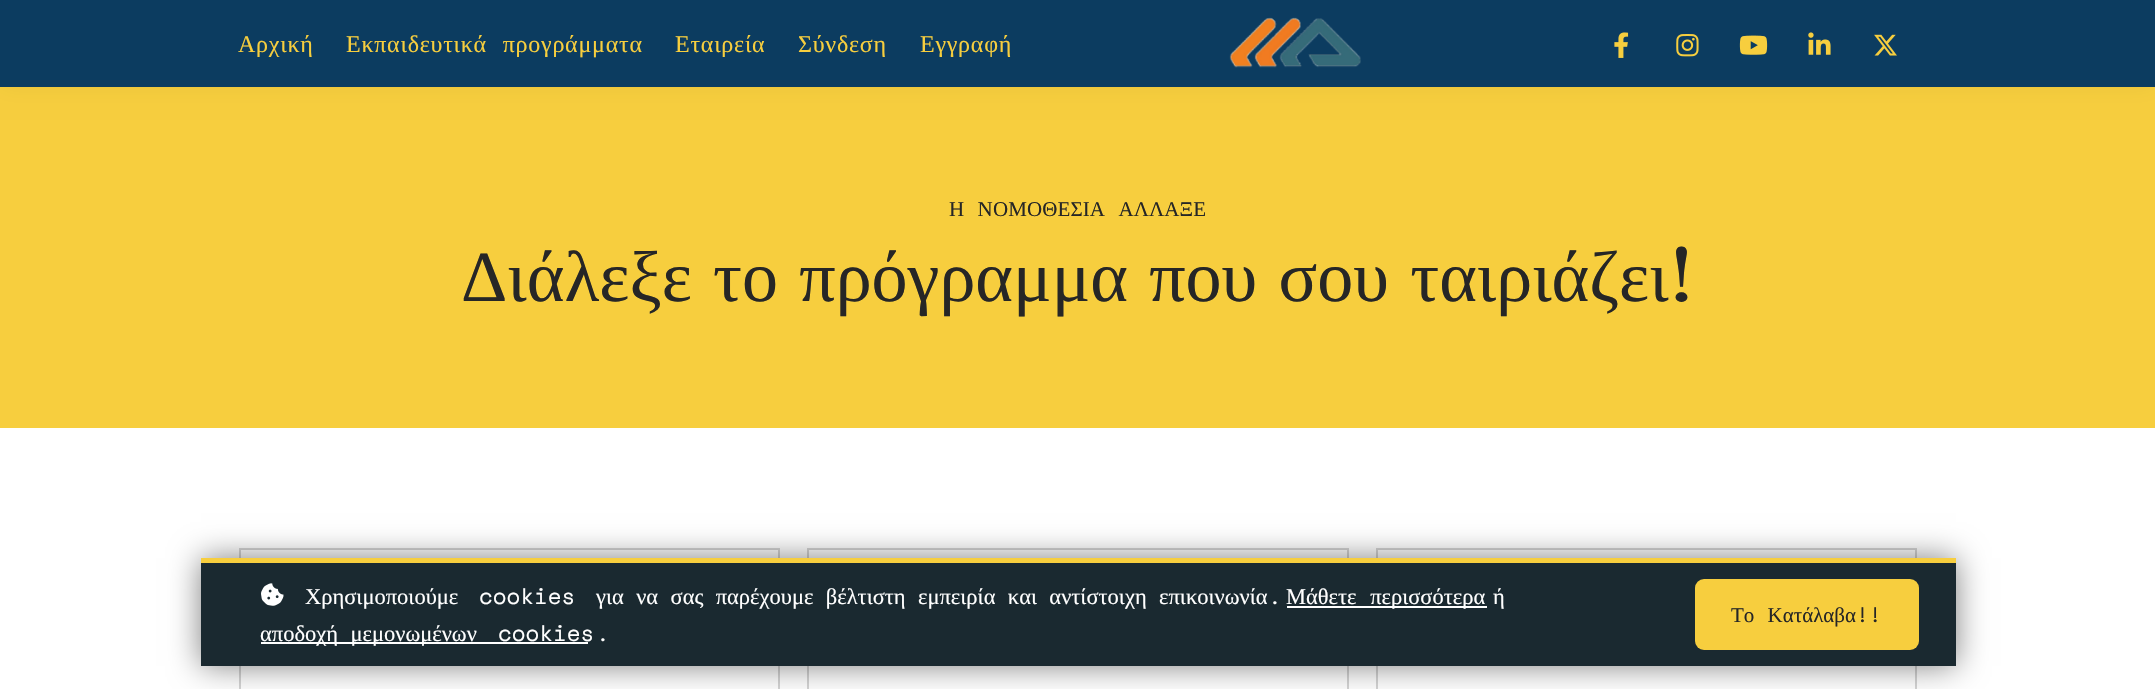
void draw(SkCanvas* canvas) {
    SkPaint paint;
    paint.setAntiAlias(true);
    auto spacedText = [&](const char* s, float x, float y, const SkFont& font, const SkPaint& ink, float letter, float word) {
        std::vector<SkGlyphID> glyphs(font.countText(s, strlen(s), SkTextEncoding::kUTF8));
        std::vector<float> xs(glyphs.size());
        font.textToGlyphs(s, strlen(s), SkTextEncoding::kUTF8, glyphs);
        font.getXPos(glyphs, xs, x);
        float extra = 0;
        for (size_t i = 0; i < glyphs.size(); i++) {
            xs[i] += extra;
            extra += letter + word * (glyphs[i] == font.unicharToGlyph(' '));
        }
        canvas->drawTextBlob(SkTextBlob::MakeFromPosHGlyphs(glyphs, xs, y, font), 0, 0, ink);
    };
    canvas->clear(0xFFFFFFFF);
    paint.setColor(0xFFF7CE3E);
    canvas->drawRect(SkRect::MakeXYWH(0, 87, 2155, 341), paint);
    paint.setColor(0x0D000000);
    paint.setMaskFilter(SkMaskFilter::MakeBlur(kNormal_SkBlurStyle, 11));
    canvas->drawRect(SkRect::MakeXYWH(0, 0, 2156, 87), paint);
    paint.setMaskFilter(nullptr);
    paint.setColor(0xFF0C3C60);
    canvas->drawRect(SkRect::MakeXYWH(0, 0, 2155, 87), paint);
    SkFont font1(fontMgr->matchFamilyStyle("Liberation Serif", SkFontStyle::Normal()), 24);
    font1.setSubpixel(true);
    paint.setColor(0xFFF7CE3E);
    spacedText("Αρχική", 238, 52, font1, paint, 0.75f, 0);
    spacedText("Εκπαιδευτικά προγράμματα", 346, 52, font1, paint, 0.75f, 9);
    spacedText("Εταιρεία", 675, 52, font1, paint, 0.75f, 0);
    spacedText("Σύνδεση", 798, 52, font1, paint, 0.75f, 0);
    spacedText("Εγγραφή", 920, 52, font1, paint, 0.75f, 0);
    canvas->drawImageRect(SkImages::DeferredFromEncodedData(SkData::MakeFromFileName("img1.png")), SkRect::MakeXYWH(1229, 17, 132, 51), SkSamplingOptions());
    canvas->drawImageRect(SkImages::DeferredFromEncodedData(SkData::MakeFromFileName("img2.png")), SkRect::MakeXYWH(1614, 32, 15, 26), SkSamplingOptions());
    canvas->drawImageRect(SkImages::DeferredFromEncodedData(SkData::MakeFromFileName("img3.png")), SkRect::MakeXYWH(1676, 34, 23, 23), SkSamplingOptions());
    canvas->drawImageRect(SkImages::DeferredFromEncodedData(SkData::MakeFromFileName("img4.png")), SkRect::MakeXYWH(1739, 35, 29, 20), SkSamplingOptions());
    canvas->drawImageRect(SkImages::DeferredFromEncodedData(SkData::MakeFromFileName("img5.png")), SkRect::MakeXYWH(1808, 32, 23, 23), SkSamplingOptions());
    canvas->drawImageRect(SkImages::DeferredFromEncodedData(SkData::MakeFromFileName("img6.png")), SkRect::MakeXYWH(1874, 34, 23, 22), SkSamplingOptions());
    SkFont font2(fontMgr->matchFamilyStyle("Liberation Serif", SkFontStyle::Normal()), 21);
    font2.setSubpixel(true);
    paint.setColor(0xFF262626);
    spacedText("Η ΝΟΜΟΘΕΣΙΑ ΑΛΛΑΞΕ", 949, 216, font2, paint, 0.1f, 8);
    SkFont font3(fontMgr->matchFamilyStyle("Liberation Serif", SkFontStyle::Normal()), 72);
    font3.setSubpixel(true);
    spacedText("Διάλεξε το πρόγραμμα που σου ταιριάζει", 461, 301, font3, paint, 0, 3.25f);
    SkFont font4(fontMgr->matchFamilyStyle("BioRhyme", SkFontStyle::Normal()), 72);
    font4.setSubpixel(true);
    canvas->drawString("!", 1669, 301, font4, paint);
    paint.setStyle(SkPaint::kStroke_Style);
    paint.setStrokeWidth(2);
    paint.setColor(0xFFD4D4D4);
    canvas->drawRect(SkRect::MakeXYWH(240, 549, 539, 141), paint);
    canvas->drawRect(SkRect::MakeXYWH(808, 549, 540, 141), paint);
    canvas->drawRect(SkRect::MakeXYWH(1377, 549, 539, 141), paint);
    paint.setStyle(SkPaint::kFill_Style);
    paint.setColor(0x80000000);
    paint.setMaskFilter(SkMaskFilter::MakeBlur(kNormal_SkBlurStyle, 15));
    canvas->drawRect(SkRect::MakeXYWH(201, 558, 1755, 108), paint);
    paint.setMaskFilter(nullptr);
    paint.setColor(0xFF1A2930);
    canvas->drawRect(SkRect::MakeXYWH(201, 563, 1755, 103), paint);
    paint.setColor(0xFFF7CE3E);
    canvas->drawRect(SkRect::MakeXYWH(201, 558, 1755, 5), paint);
    canvas->drawImageRect(SkImages::DeferredFromEncodedData(SkData::MakeFromFileName("img7.png")), SkRect::MakeXYWH(261, 583, 23, 23), SkSamplingOptions());
    SkFont font5(fontMgr->matchFamilyStyle("Liberation Serif", SkFontStyle::Normal()), 22.5f);
    font5.setSubpixel(true);
    paint.setColor(0xFFFFFFFF);
    canvas->drawString("Χρησιμοποιούμε", 305, 604, font5, paint);
    SkFont font6(fontMgr->matchFamilyStyle("Space Mono", SkFontStyle::Normal()), 22.5f);
    font6.setSubpixel(true);
    canvas->drawString("cookies", 479, 604, font6, paint);
    spacedText("για να σας παρέχουμε βέλτιστη εμπειρία και αντίστοιχη επικοινωνία", 596, 604, font5, paint, 0, 6.75f);
    canvas->drawString(".", 1268, 604, font6, paint);
    canvas->drawRect(SkRect::MakeXYWH(1287, 606, 200, 2), paint);
    spacedText("Μάθετε περισσότερα", 1286, 604, font5, paint, 0, 8);
    canvas->drawString("ή", 1493, 604, font5, paint);
    canvas->drawRect(SkRect::MakeXYWH(261, 642, 327, 2), paint);
    spacedText("αποδοχή μεμονωμένων", 260, 641, font5, paint, 0, 6.75f);
    canvas->drawString("cookies", 498, 641, font6, paint);
    canvas->drawString(".", 596, 641, font6, paint);
    paint.setColor(0xFFF7CE3E);
    canvas->drawRoundRect(SkRect::MakeXYWH(1695, 579, 224, 71), 9, 9, paint);
    paint.setColor(0xFF262626);
    spacedText("Το Κατάλαβα", 1731, 622, font2, paint, 0, 8);
    SkFont font7(fontMgr->matchFamilyStyle("Space Mono", SkFontStyle::Normal()), 21);
    font7.setSubpixel(true);
    canvas->drawString("!!", 1856, 622, font7, paint);
}
